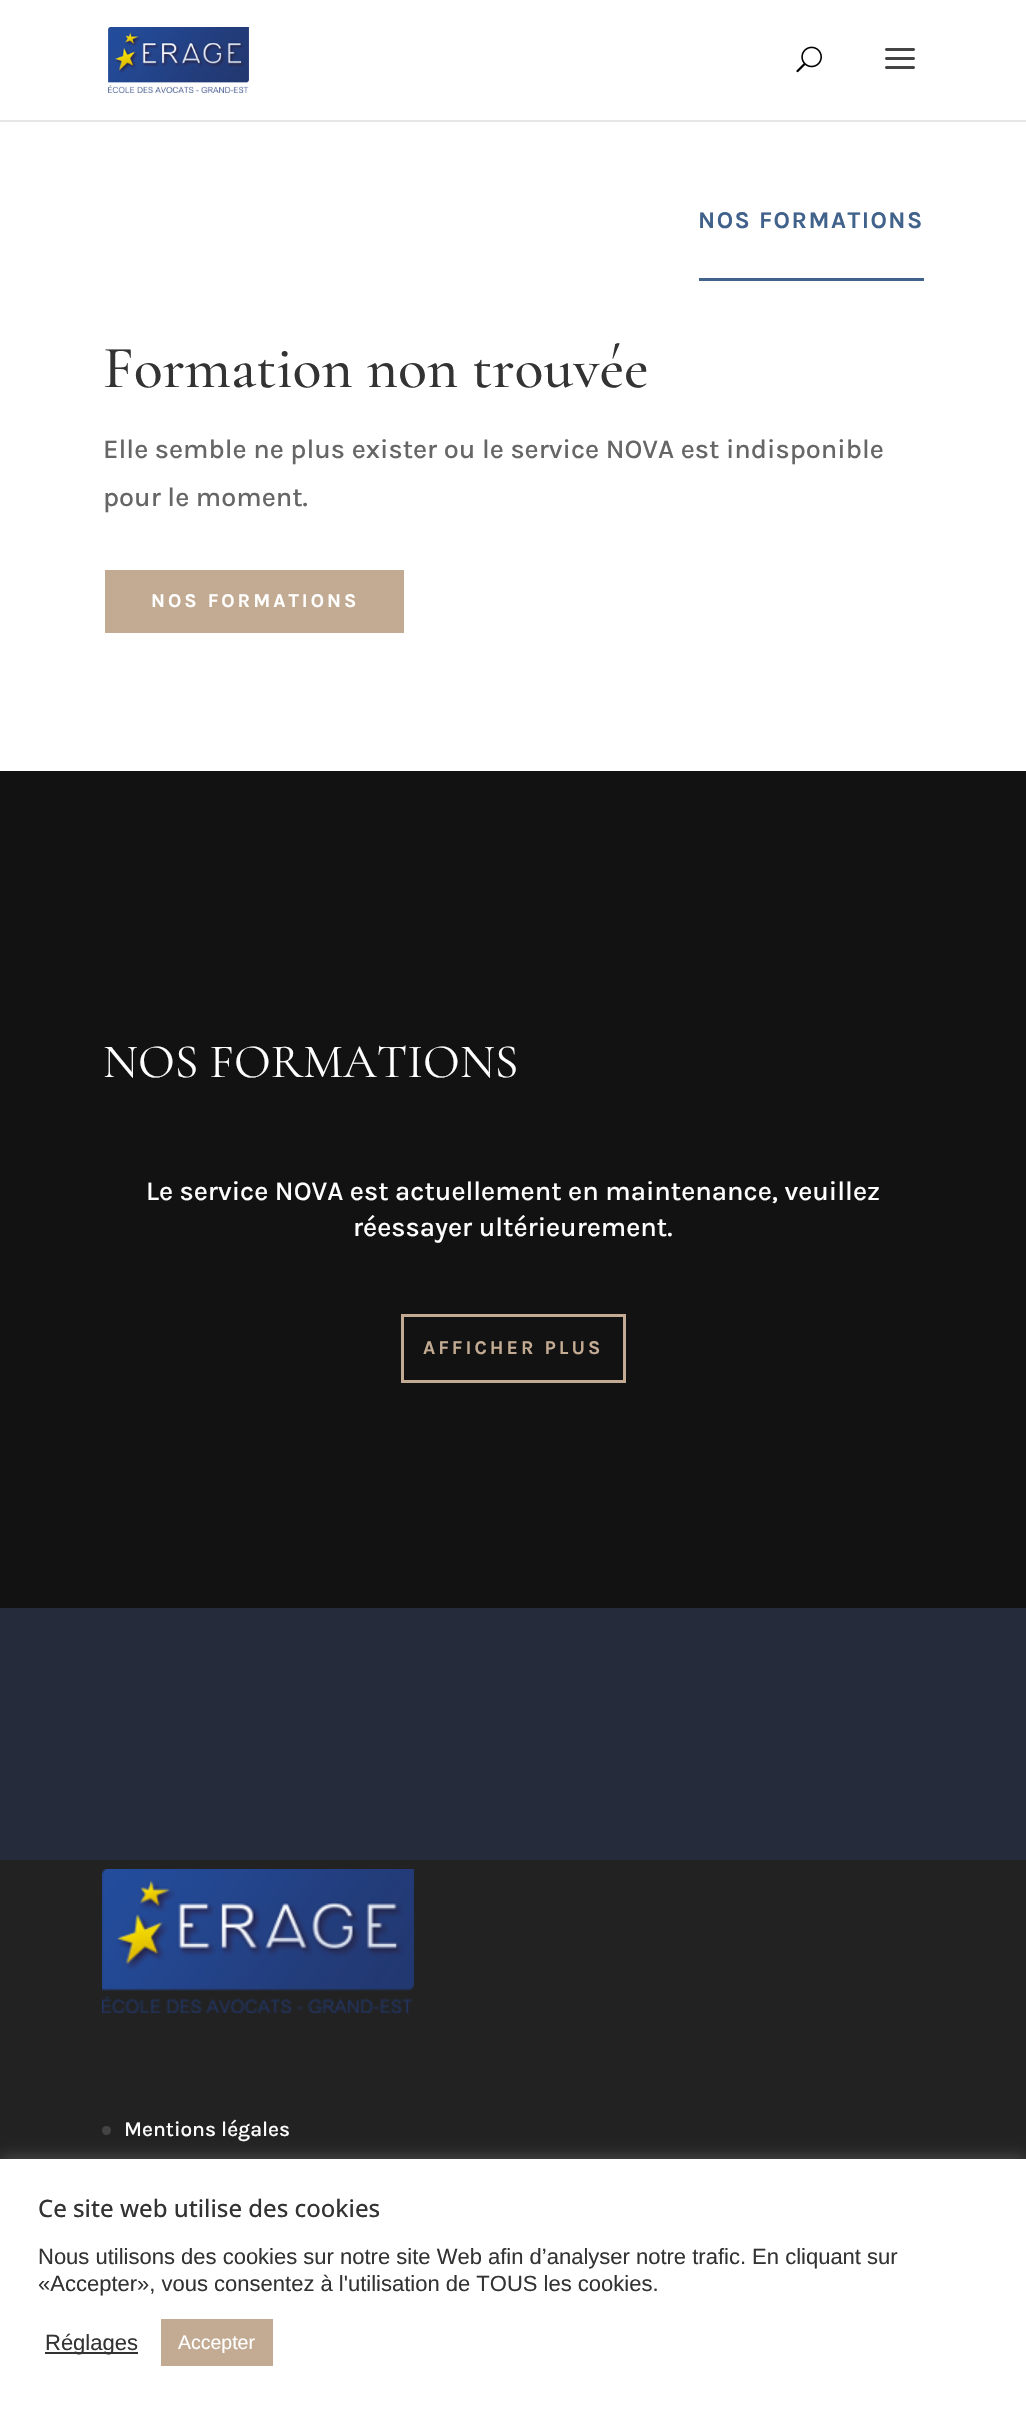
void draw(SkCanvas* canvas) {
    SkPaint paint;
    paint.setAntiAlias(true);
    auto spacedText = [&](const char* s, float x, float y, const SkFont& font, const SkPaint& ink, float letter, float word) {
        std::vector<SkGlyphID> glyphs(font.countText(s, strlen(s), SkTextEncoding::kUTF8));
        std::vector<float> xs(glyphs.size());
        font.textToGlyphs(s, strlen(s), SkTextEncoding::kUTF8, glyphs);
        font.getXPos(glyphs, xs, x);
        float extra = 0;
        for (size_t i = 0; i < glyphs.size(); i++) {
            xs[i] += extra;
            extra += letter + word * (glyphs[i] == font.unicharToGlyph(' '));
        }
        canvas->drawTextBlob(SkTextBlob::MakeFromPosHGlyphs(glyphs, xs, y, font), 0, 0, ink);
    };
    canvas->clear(0xFFFFFFFF);
    paint.setColor(0xFFE6E6E6);
    canvas->drawRect(SkRect::MakeXYWH(0, 120, 1026, 2), paint);
    canvas->drawImageRect(SkImages::DeferredFromEncodedData(SkData::MakeFromFileName("img1.png")), SkRect::MakeXYWH(108, 27, 141, 66), SkSamplingOptions());
    canvas->drawImageRect(SkImages::DeferredFromEncodedData(SkData::MakeFromFileName("img2.png")), SkRect::MakeXYWH(796, 46, 26, 27), SkSamplingOptions());
    canvas->drawImageRect(SkImages::DeferredFromEncodedData(SkData::MakeFromFileName("img3.png")), SkRect::MakeXYWH(885, 48, 30, 21), SkSamplingOptions());
    SkFont font1(fontMgr->matchFamilyStyle("Karla", SkFontStyle::Bold()), 24);
    font1.setSubpixel(true);
    paint.setColor(0xFF41628A);
    spacedText("NOS FORMATIONS", 698, 228, font1, paint, 1.5f, 0);
    canvas->drawRect(SkRect::MakeXYWH(699, 278, 225, 3), paint);
    SkFont font2(fontMgr->matchFamilyStyle("Cormorant Garamond", SkFontStyle(500, SkFontStyle::kNormal_Width, SkFontStyle::kUpright_Slant)), 60);
    font2.setSubpixel(true);
    paint.setColor(0xFF333333);
    canvas->drawString("Formation non trouvée", 103, 387, font2, paint);
    SkFont font3(fontMgr->matchFamilyStyle("Karla", SkFontStyle(500, SkFontStyle::kNormal_Width, SkFontStyle::kUpright_Slant)), 27);
    font3.setSubpixel(true);
    paint.setColor(0xFF666666);
    canvas->drawString("Elle semble ne plus exister ou le service NOVA est indisponible", 103, 458, font3, paint);
    canvas->drawString("pour le moment.", 103, 506, font3, paint);
    paint.setColor(0xFFC2AB92);
    canvas->drawRect(SkRect::MakeXYWH(105, 570, 299, 63), paint);
    SkFont font4(fontMgr->matchFamilyStyle("Karla", SkFontStyle::Bold()), 19.5f);
    font4.setSubpixel(true);
    paint.setColor(0xFFFFFFFF);
    spacedText("NOS FORMATIONS", 151, 607, font4, paint, 3, 0);
    paint.setColor(0xFF121212);
    canvas->drawRect(SkRect::MakeXYWH(0, 771, 1026, 837), paint);
    SkFont font5(fontMgr->matchFamilyStyle("Cormorant Garamond", SkFontStyle::Normal()), 48);
    font5.setSubpixel(true);
    paint.setColor(0xFFFFFFFF);
    canvas->drawString("NOS FORMATIONS", 103, 1077, font5, paint);
    canvas->drawString("Le service NOVA est actuellement en maintenance, veuillez", 146, 1200, font3, paint);
    canvas->drawString("réessayer ultérieurement.", 353, 1236, font3, paint);
    paint.setStyle(SkPaint::kStroke_Style);
    paint.setStrokeWidth(3);
    paint.setColor(0xFFC2AB92);
    canvas->drawRect(SkRect::MakeXYWH(402.5f, 1315.5f, 222, 66), paint);
    paint.setStyle(SkPaint::kFill_Style);
    spacedText("AFFICHER PLUS", 423, 1354, font4, paint, 3, 0);
    paint.setColor(0xFF252B3A);
    canvas->drawRect(SkRect::MakeXYWH(0, 1608, 1026, 252), paint);
    paint.setColor(0xFF222222);
    canvas->drawRect(SkRect::MakeXYWH(0, 1860, 1026, 299), paint);
    canvas->drawImageRect(SkImages::DeferredFromEncodedData(SkData::MakeFromFileName("img4.png")), SkRect::MakeXYWH(102, 1869, 312, 144), SkSamplingOptions());
    paint.setColor(0xFF444444);
    canvas->drawCircle(106.5f, 2130.5f, 4.5f, paint);
    SkFont font6(fontMgr->matchFamilyStyle("Karla", SkFontStyle(500, SkFontStyle::kNormal_Width, SkFontStyle::kUpright_Slant)), 21);
    font6.setSubpixel(true);
    paint.setColor(0xFFFFFFFF);
    canvas->drawString("Mentions légales", 124, 2136, font6, paint);
    paint.setColor(0x4DACABAB);
    paint.setMaskFilter(SkMaskFilter::MakeBlur(kNormal_SkBlurStyle, 7.5f));
    canvas->drawRect(SkRect::MakeXYWH(0, 2157, 1026, 252), paint);
    paint.setMaskFilter(nullptr);
    paint.setColor(0xFFFFFFFF);
    canvas->drawRect(SkRect::MakeXYWH(0, 2159, 1026, 251), paint);
    SkFont font7(fontMgr->matchFamilyStyle("Open Sans", SkFontStyle(500, SkFontStyle::kNormal_Width, SkFontStyle::kUpright_Slant)), 24);
    font7.setSubpixel(true);
    paint.setColor(0xFF333333);
    canvas->drawString("Ce site web utilise des cookies", 38, 2217, font7, paint);
    SkFont font8(fontMgr->matchFamilyStyle("Liberation Sans", SkFontStyle::Normal()), 22);
    font8.setSubpixel(true);
    canvas->drawString("Nous utilisons des cookies sur notre site Web afin d’analyser notre trafic. En cliquant sur", 38, 2264, font8, paint);
    canvas->drawString("«Accepter», vous consentez à l'utilisation de TOUS les cookies.", 38, 2291, font8, paint);
    canvas->drawRect(SkRect::MakeXYWH(45, 2352, 93, 2), paint);
    canvas->drawString("Réglages", 45, 2350, font8, paint);
    paint.setColor(0xFFC2AB92);
    canvas->drawRect(SkRect::MakeXYWH(161, 2319, 112, 47), paint);
    SkFont font9(fontMgr->matchFamilyStyle("Liberation Sans", SkFontStyle::Normal()), 19.5f);
    font9.setSubpixel(true);
    paint.setColor(0xFFFFFFFF);
    canvas->drawString("Accepter", 178, 2349, font9, paint);
}
